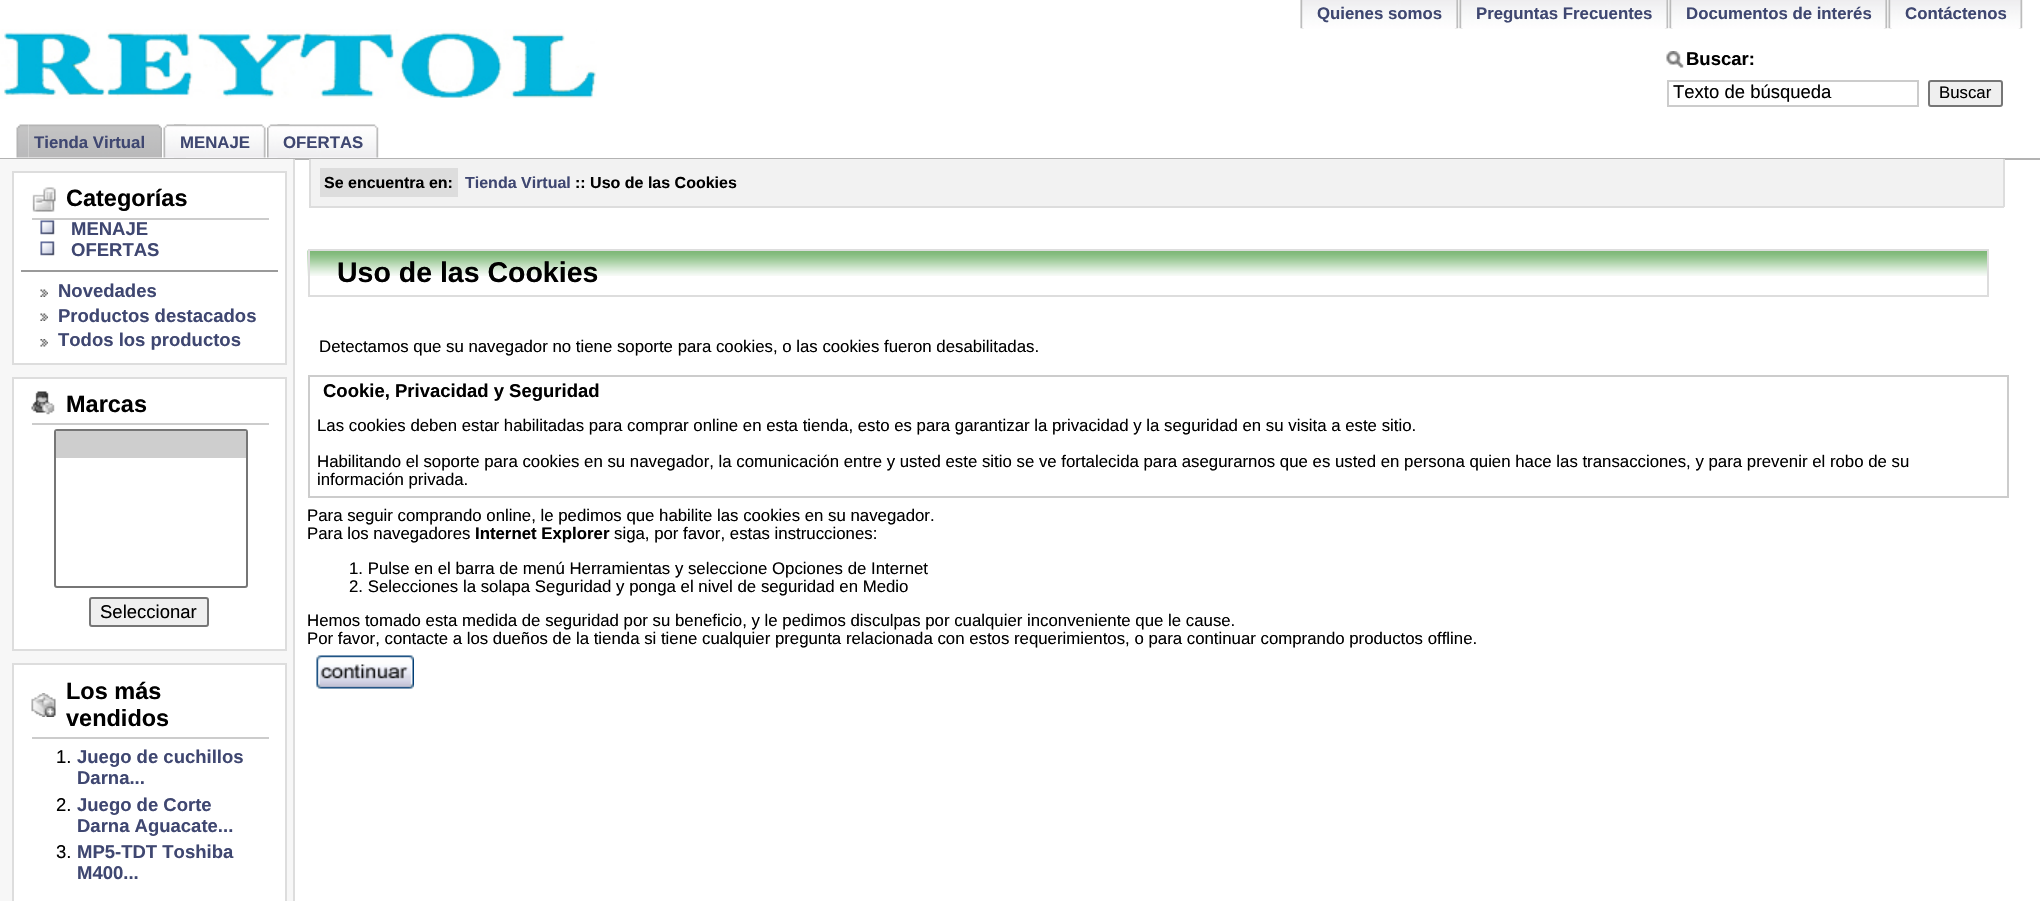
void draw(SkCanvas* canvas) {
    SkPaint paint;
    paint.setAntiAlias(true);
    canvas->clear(0xFFFFFFFF);
    canvas->drawImageRect(SkImages::DeferredFromEncodedData(SkData::MakeFromFileName("img1.png")), SkRect::MakeXYWH(1300, 0, 23, 29), SkSamplingOptions());
    canvas->drawImageRect(SkImages::DeferredFromEncodedData(SkData::MakeFromFileName("img2.png")), SkRect::MakeXYWH(1323, 0, 136, 29), SkSamplingOptions());
    SkFont font1(fontMgr->matchFamilyStyle("Liberation Sans", SkFontStyle::Bold()), 16.8f);
    font1.setSubpixel(true);
    paint.setColor(0xFF3F4771);
    canvas->drawString("Quienes somos", 1317, 19, font1, paint);
    canvas->drawImageRect(SkImages::DeferredFromEncodedData(SkData::MakeFromFileName("img1.png")), SkRect::MakeXYWH(1459, 0, 23, 29), SkSamplingOptions());
    canvas->drawImageRect(SkImages::DeferredFromEncodedData(SkData::MakeFromFileName("img3.png")), SkRect::MakeXYWH(1482, 0, 187, 29), SkSamplingOptions());
    canvas->drawString("Preguntas Frecuentes", 1476, 19, font1, paint);
    canvas->drawImageRect(SkImages::DeferredFromEncodedData(SkData::MakeFromFileName("img4.png")), SkRect::MakeXYWH(1669, 0, 23, 29), SkSamplingOptions());
    canvas->drawImageRect(SkImages::DeferredFromEncodedData(SkData::MakeFromFileName("img5.png")), SkRect::MakeXYWH(1692, 0, 196, 29), SkSamplingOptions());
    canvas->drawString("Documentos de interés", 1686, 19, font1, paint);
    canvas->drawImageRect(SkImages::DeferredFromEncodedData(SkData::MakeFromFileName("img1.png")), SkRect::MakeXYWH(1888, 0, 23, 29), SkSamplingOptions());
    canvas->drawImageRect(SkImages::DeferredFromEncodedData(SkData::MakeFromFileName("img6.png")), SkRect::MakeXYWH(1911, 0, 112, 29), SkSamplingOptions());
    canvas->drawString("Contáctenos", 1905, 19, font1, paint);
    canvas->drawImageRect(SkImages::DeferredFromEncodedData(SkData::MakeFromFileName("img7.png")), SkRect::MakeXYWH(0, 29, 597, 70), SkSamplingOptions());
    canvas->drawImageRect(SkImages::DeferredFromEncodedData(SkData::MakeFromFileName("img8.png")), SkRect::MakeXYWH(1666, 51, 18, 17), SkSamplingOptions());
    SkFont font2(fontMgr->matchFamilyStyle("Liberation Sans", SkFontStyle::Bold()), 18.5f);
    font2.setSubpixel(true);
    paint.setColor(0xFF000000);
    canvas->drawString("Buscar:", 1686, 65, font2, paint);
    paint.setStyle(SkPaint::kStroke_Style);
    paint.setStrokeWidth(2);
    paint.setColor(0xFFCCCCCC);
    canvas->drawRect(SkRect::MakeXYWH(1668, 81, 250, 25), paint);
    SkFont font3(fontMgr->matchFamilyStyle("Liberation Sans", SkFontStyle::Normal()), 18.5f);
    font3.setSubpixel(true);
    paint.setStyle(SkPaint::kFill_Style);
    paint.setColor(0xFF000000);
    canvas->drawString("Texto de búsqueda", 1673, 98, font3, paint);
    paint.setColor(0xFFEFEFEF);
    canvas->drawRoundRect(SkRect::MakeXYWH(1929, 81, 73, 25), 2, 2, paint);
    paint.setStyle(SkPaint::kStroke_Style);
    paint.setColor(0xFF767676);
    canvas->drawRoundRect(SkRect::MakeXYWH(1929, 81, 73, 25), 2, 2, paint);
    SkFont font4(fontMgr->matchFamilyStyle("Liberation Sans", SkFontStyle::Normal()), 16.8f);
    font4.setSubpixel(true);
    paint.setStyle(SkPaint::kFill_Style);
    paint.setColor(0xFF000000);
    canvas->drawString("Buscar", 1939, 98, font4, paint);
    paint.setColor(0xFFB3B3B3);
    canvas->drawRect(SkRect::MakeXYWH(0, 158, 2040, 2), paint);
    canvas->drawImageRect(SkImages::DeferredFromEncodedData(SkData::MakeFromFileName("img9.png")), SkRect::MakeXYWH(16, 124, 13, 34), SkSamplingOptions());
    canvas->drawImageRect(SkImages::DeferredFromEncodedData(SkData::MakeFromFileName("img10.png")), SkRect::MakeXYWH(28, 124, 134, 34), SkSamplingOptions());
    paint.setColor(0xFF3F4771);
    canvas->drawString("Tienda Virtual", 34, 148, font1, paint);
    canvas->drawImageRect(SkImages::DeferredFromEncodedData(SkData::MakeFromFileName("img11.png")), SkRect::MakeXYWH(163, 124, 23, 34), SkSamplingOptions());
    canvas->drawImageRect(SkImages::DeferredFromEncodedData(SkData::MakeFromFileName("img12.png")), SkRect::MakeXYWH(174, 124, 92, 34), SkSamplingOptions());
    canvas->drawString("MENAJE", 180, 148, font1, paint);
    canvas->drawImageRect(SkImages::DeferredFromEncodedData(SkData::MakeFromFileName("img13.png")), SkRect::MakeXYWH(267, 124, 23, 34), SkSamplingOptions());
    canvas->drawImageRect(SkImages::DeferredFromEncodedData(SkData::MakeFromFileName("img14.png")), SkRect::MakeXYWH(277, 124, 102, 34), SkSamplingOptions());
    canvas->drawString("OFERTAS", 283, 148, font1, paint);
    paint.setColor(0xFFF7F7F7);
    canvas->drawRect(SkRect::MakeXYWH(0, 159, 293, 742), paint);
    paint.setColor(0xFFFFFFFF);
    canvas->drawRect(SkRect::MakeXYWH(13, 172, 273, 192), paint);
    paint.setStyle(SkPaint::kStroke_Style);
    paint.setColor(0xFFDDDDDD);
    canvas->drawRect(SkRect::MakeXYWH(13, 172, 273, 192), paint);
    canvas->drawImageRect(SkImages::DeferredFromEncodedData(SkData::MakeFromFileName("img15.png")), SkRect::MakeXYWH(32, 187, 24, 25), SkSamplingOptions());
    paint.setStyle(SkPaint::kFill_Style);
    paint.setColor(0xFFCCCCCC);
    canvas->drawRect(SkRect::MakeXYWH(32, 218, 237, 2), paint);
    SkFont font5(fontMgr->matchFamilyStyle("Liberation Sans", SkFontStyle::Bold()), 23.5f);
    font5.setSubpixel(true);
    paint.setColor(0xFF000000);
    canvas->drawString("Categorías", 66, 206, font5, paint);
    canvas->drawImageRect(SkImages::DeferredFromEncodedData(SkData::MakeFromFileName("img16.png")), SkRect::MakeXYWH(40, 220, 15, 15), SkSamplingOptions());
    paint.setColor(0xFF3F4771);
    canvas->drawString("MENAJE", 71, 235, font2, paint);
    canvas->drawImageRect(SkImages::DeferredFromEncodedData(SkData::MakeFromFileName("img16.png")), SkRect::MakeXYWH(40, 241, 15, 15), SkSamplingOptions());
    canvas->drawString("OFERTAS", 71, 256, font2, paint);
    paint.setColor(0xFF9A9A9A);
    canvas->drawRect(SkRect::MakeXYWH(21, 270, 257, 2), paint);
    canvas->drawImageRect(SkImages::DeferredFromEncodedData(SkData::MakeFromFileName("img17.png")), SkRect::MakeXYWH(40, 289, 8, 8), SkSamplingOptions());
    paint.setColor(0xFF3F4771);
    canvas->drawString("Novedades", 58, 297, font2, paint);
    canvas->drawImageRect(SkImages::DeferredFromEncodedData(SkData::MakeFromFileName("img17.png")), SkRect::MakeXYWH(40, 313, 8, 8), SkSamplingOptions());
    canvas->drawString("Productos destacados", 58, 322, font2, paint);
    canvas->drawImageRect(SkImages::DeferredFromEncodedData(SkData::MakeFromFileName("img18.png")), SkRect::MakeXYWH(40, 339, 8, 8), SkSamplingOptions());
    canvas->drawString("Todos los productos", 58, 346, font2, paint);
    paint.setColor(0xFFFFFFFF);
    canvas->drawRect(SkRect::MakeXYWH(13, 378, 273, 272), paint);
    paint.setStyle(SkPaint::kStroke_Style);
    paint.setColor(0xFFDDDDDD);
    canvas->drawRect(SkRect::MakeXYWH(13, 378, 273, 272), paint);
    canvas->drawImageRect(SkImages::DeferredFromEncodedData(SkData::MakeFromFileName("img19.png")), SkRect::MakeXYWH(31, 391, 24, 24), SkSamplingOptions());
    paint.setStyle(SkPaint::kFill_Style);
    paint.setColor(0xFFCCCCCC);
    canvas->drawRect(SkRect::MakeXYWH(32, 423, 237, 2), paint);
    paint.setColor(0xFF000000);
    canvas->drawString("Marcas", 66, 412, font5, paint);
    paint.setStyle(SkPaint::kStroke_Style);
    paint.setColor(0xFF767676);
    canvas->drawRoundRect(SkRect::MakeXYWH(55, 430, 192, 157), 2, 2, paint);
    paint.setStyle(SkPaint::kFill_Style);
    paint.setColor(0xFFCECECE);
    canvas->drawPath(SkPathBuilder().moveTo(57.5f, 431).lineTo(244.5f, 431).cubicTo(245.5f, 431, 246, 431.5f, 246, 432.5f).lineTo(246, 458).lineTo(56, 458).lineTo(56, 432.5f).cubicTo(56, 431.5f, 56.5f, 431, 57.5f, 431).close().detach(), paint);
    paint.setColor(0xFFEFEFEF);
    canvas->drawRoundRect(SkRect::MakeXYWH(90, 598, 118, 28), 2, 2, paint);
    paint.setStyle(SkPaint::kStroke_Style);
    paint.setColor(0xFF767676);
    canvas->drawRoundRect(SkRect::MakeXYWH(90, 598, 118, 28), 2, 2, paint);
    paint.setStyle(SkPaint::kFill_Style);
    paint.setColor(0xFF000000);
    canvas->drawString("Seleccionar", 100, 618, font3, paint);
    paint.setColor(0xFFFFFFFF);
    canvas->drawRect(SkRect::MakeXYWH(13, 664, 273, 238), paint);
    paint.setStyle(SkPaint::kStroke_Style);
    paint.setColor(0xFFDDDDDD);
    canvas->drawRect(SkRect::MakeXYWH(13, 664, 273, 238), paint);
    canvas->drawImageRect(SkImages::DeferredFromEncodedData(SkData::MakeFromFileName("img20.png")), SkRect::MakeXYWH(31, 693, 25, 24), SkSamplingOptions());
    paint.setStyle(SkPaint::kFill_Style);
    paint.setColor(0xFFCCCCCC);
    canvas->drawRect(SkRect::MakeXYWH(32, 737, 237, 2), paint);
    paint.setColor(0xFF000000);
    canvas->drawString("Los más", 66, 699, font5, paint);
    canvas->drawString("vendidos", 66, 726, font5, paint);
    canvas->drawString("1.", 56, 763, font3, paint);
    paint.setColor(0xFF3F4771);
    canvas->drawString("Juego de cuchillos", 77, 763, font2, paint);
    canvas->drawString("Darna...", 77, 784, font2, paint);
    paint.setColor(0xFF000000);
    canvas->drawString("2.", 56, 811, font3, paint);
    paint.setColor(0xFF3F4771);
    canvas->drawString("Juego de Corte", 77, 811, font2, paint);
    canvas->drawString("Darna Aguacate...", 77, 832, font2, paint);
    paint.setColor(0xFF000000);
    canvas->drawString("3.", 56, 858, font3, paint);
    paint.setColor(0xFF3F4771);
    canvas->drawString("MP5-TDT Toshiba", 77, 858, font2, paint);
    canvas->drawString("M400...", 77, 879, font2, paint);
    paint.setColor(0xFFDDDDDD);
    canvas->drawRect(SkRect::MakeXYWH(293, 159, 2, 742), paint);
    paint.setColor(0xFFF2F2F2);
    canvas->drawRect(SkRect::MakeXYWH(311, 159, 1692, 47), paint);
    paint.setColor(0xFFDDDDDD);
    canvas->drawRect(SkRect::MakeXYWH(2003, 159, 2, 48), paint);
    canvas->drawRect(SkRect::MakeXYWH(309, 206, 1695, 2), paint);
    canvas->drawRect(SkRect::MakeXYWH(309, 159, 2, 48), paint);
    canvas->drawRect(SkRect::MakeXYWH(320, 168, 138, 29), paint);
    SkFont font6(fontMgr->matchFamilyStyle("Liberation Sans", SkFontStyle::Bold()), 16);
    font6.setSubpixel(true);
    paint.setColor(0xFF000000);
    canvas->drawString("Se encuentra en:", 324, 188, font6, paint);
    paint.setColor(0xFF3F4771);
    canvas->drawString("Tienda Virtual", 465, 188, font6, paint);
    paint.setColor(0xFF000000);
    canvas->drawString(":: Uso de las Cookies", 575, 188, font6, paint);
    canvas->drawImageRect(SkImages::DeferredFromEncodedData(SkData::MakeFromFileName("img21.png")), SkRect::MakeXYWH(307, 250, 1680, 26), SkSamplingOptions());
    paint.setStyle(SkPaint::kStroke_Style);
    paint.setColor(0xFFDDDDDD);
    canvas->drawRect(SkRect::MakeXYWH(309, 250, 1679, 46), paint);
    SkFont font7(fontMgr->matchFamilyStyle("Liberation Sans", SkFontStyle::Bold()), 28.5f);
    font7.setSubpixel(true);
    paint.setStyle(SkPaint::kFill_Style);
    paint.setColor(0xFF000000);
    canvas->drawString("Uso de las Cookies", 337, 282, font7, paint);
    canvas->drawString("Detectamos que su navegador no tiene soporte para cookies, o las cookies fueron desabilitadas.", 319, 352, font4, paint);
    paint.setStyle(SkPaint::kStroke_Style);
    paint.setColor(0xFFCCCCCC);
    canvas->drawRect(SkRect::MakeXYWH(309, 376, 1699, 121), paint);
    paint.setStyle(SkPaint::kFill_Style);
    paint.setColor(0xFF000000);
    canvas->drawString("Cookie, Privacidad y Seguridad", 323, 397, font2, paint);
    canvas->drawString("Las cookies deben estar habilitadas para comprar online en esta tienda, esto es para garantizar la privacidad y la seguridad en su visita a este sitio.", 317, 431, font4, paint);
    canvas->drawString("Habilitando el soporte para cookies en su navegador, la comunicación entre y usted este sitio se ve fortalecida para asegurarnos que es usted en persona quien hace las transacciones, y para prevenir el robo de su", 317, 467, font4, paint);
    canvas->drawString("información privada.", 317, 485, font4, paint);
    canvas->drawString("Para seguir comprando online, le pedimos que habilite las cookies en su navegador.", 307, 521, font4, paint);
    canvas->drawString("Para los navegadores", 307, 539, font4, paint);
    canvas->drawString("Internet Explorer", 475, 539, font1, paint);
    canvas->drawString("siga, por favor, estas instrucciones:", 614, 539, font4, paint);
    canvas->drawString("1. Pulse en el barra de menú Herramientas y seleccione Opciones de Internet", 349, 574, font4, paint);
    canvas->drawString("2. Selecciones la solapa Seguridad y ponga el nivel de seguridad en Medio", 349, 592, font4, paint);
    canvas->drawString("Hemos tomado esta medida de seguridad por su beneficio, y le pedimos disculpas por cualquier inconveniente que le cause.", 307, 626, font4, paint);
    canvas->drawString("Por favor, contacte a los dueños de la tienda si tiene cualquier pregunta relacionada con estos requerimientos, o para continuar comprando productos offline.", 307, 644, font4, paint);
    canvas->drawImageRect(SkImages::DeferredFromEncodedData(SkData::MakeFromFileName("img22.png")), SkRect::MakeXYWH(316, 655, 98, 34), SkSamplingOptions());
}
